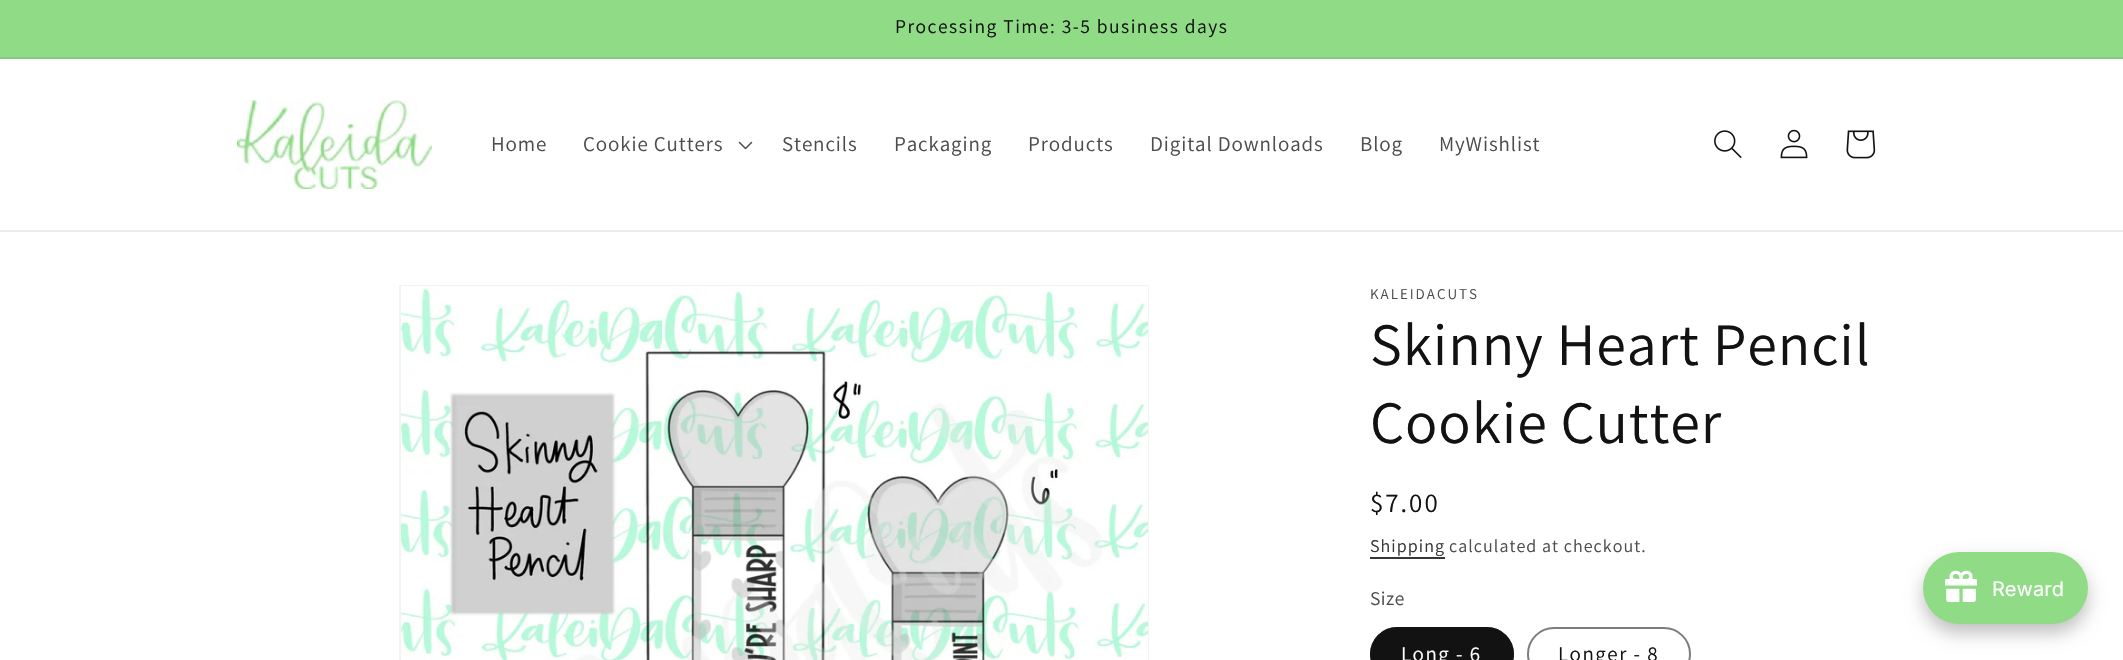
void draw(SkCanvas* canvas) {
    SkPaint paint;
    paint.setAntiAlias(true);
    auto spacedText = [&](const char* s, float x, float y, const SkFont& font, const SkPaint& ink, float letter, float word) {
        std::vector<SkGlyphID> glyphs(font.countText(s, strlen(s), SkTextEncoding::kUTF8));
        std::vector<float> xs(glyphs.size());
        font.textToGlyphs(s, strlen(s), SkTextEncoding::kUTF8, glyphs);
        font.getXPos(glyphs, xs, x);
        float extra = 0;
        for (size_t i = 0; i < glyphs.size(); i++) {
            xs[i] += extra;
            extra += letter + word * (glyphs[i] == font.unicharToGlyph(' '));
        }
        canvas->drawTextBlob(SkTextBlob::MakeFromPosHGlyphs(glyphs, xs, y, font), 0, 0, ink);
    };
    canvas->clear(0xFFFFFFFF);
    paint.setColor(0xFF90DB86);
    canvas->drawRect(SkRect::MakeXYWH(0, 0, 2123, 57), paint);
    paint.setColor(0xFF86CB7D);
    canvas->drawRect(SkRect::MakeXYWH(0, 57, 2123, 2), paint);
    SkFont font1(fontMgr->matchFamilyStyle("Assistant", SkFontStyle::Normal()), 19.5f);
    font1.setSubpixel(true);
    paint.setColor(0xFF121212);
    spacedText("Processing Time: 3-5 business days", 895, 33, font1, paint, 1.5f, 0);
    paint.setColor(0xFFECECEC);
    canvas->drawRect(SkRect::MakeXYWH(0, 230, 2123, 2), paint);
    canvas->drawImageRect(SkImages::DeferredFromEncodedData(SkData::MakeFromFileName("img1.png")), SkRect::MakeXYWH(237, 100, 195, 89), SkSamplingOptions());
    SkFont font2(fontMgr->matchFamilyStyle("Assistant", SkFontStyle::Normal()), 21);
    font2.setSubpixel(true);
    paint.setColor(0xFF4D4D4D);
    spacedText("Home", 491, 151, font2, paint, 0.9f, 0);
    spacedText("Cookie Cutters", 583, 151, font2, paint, 0.9f, 0);
    canvas->drawImageRect(SkImages::DeferredFromEncodedData(SkData::MakeFromFileName("img2.png")), SkRect::MakeXYWH(738, 141, 15, 9), SkSamplingOptions());
    spacedText("Stencils", 782, 151, font2, paint, 0.9f, 0);
    spacedText("Packaging", 894, 151, font2, paint, 0.9f, 0);
    spacedText("Products", 1028, 151, font2, paint, 0.9f, 0);
    spacedText("Digital Downloads", 1150, 151, font2, paint, 0.9f, 0);
    spacedText("Blog", 1360, 151, font2, paint, 0.9f, 0);
    spacedText("MyWishlist", 1439, 151, font2, paint, 0.9f, 0);
    canvas->drawImageRect(SkImages::DeferredFromEncodedData(SkData::MakeFromFileName("img3.png")), SkRect::MakeXYWH(1714, 130, 28, 28), SkSamplingOptions());
    canvas->drawImageRect(SkImages::DeferredFromEncodedData(SkData::MakeFromFileName("img4.png")), SkRect::MakeXYWH(1780, 129, 28, 30), SkSamplingOptions());
    canvas->drawImageRect(SkImages::DeferredFromEncodedData(SkData::MakeFromFileName("img5.png")), SkRect::MakeXYWH(1846, 130, 30, 29), SkSamplingOptions());
    paint.setStyle(SkPaint::kStroke_Style);
    paint.setStrokeWidth(2);
    paint.setColor(0xFFF3F3F3);
    canvas->drawRect(SkRect::MakeXYWH(400, 286, 748, 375), paint);
    canvas->drawImageRect(SkImages::DeferredFromEncodedData(SkData::MakeFromFileName("img6.png")), SkRect::MakeXYWH(401, 286, 747, 374), SkSamplingOptions());
    SkFont font3(fontMgr->matchFamilyStyle("Assistant", SkFontStyle::Normal()), 15);
    font3.setSubpixel(true);
    paint.setStyle(SkPaint::kFill_Style);
    paint.setColor(0xFF4D4D4D);
    spacedText("KALEIDACUTS", 1370, 299, font3, paint, 2, 0);
    SkFont font4(fontMgr->matchFamilyStyle("Assistant", SkFontStyle::Normal()), 60);
    font4.setSubpixel(true);
    paint.setColor(0xFF121212);
    spacedText("Skinny Heart Pencil", 1370, 365, font4, paint, 0.9f, 0);
    spacedText("Cookie Cutter", 1370, 443, font4, paint, 0.9f, 0);
    SkFont font5(fontMgr->matchFamilyStyle("Assistant", SkFontStyle::Normal()), 27);
    font5.setSubpixel(true);
    spacedText("$7.00", 1370, 512, font5, paint, 2, 0);
    SkFont font6(fontMgr->matchFamilyStyle("Assistant", SkFontStyle::Normal()), 18);
    font6.setSubpixel(true);
    paint.setColor(0xFF363636);
    spacedText("Shipping", 1370, 552, font6, paint, 1.05f, 0);
    canvas->drawRect(SkRect::MakeXYWH(1370, 557, 75, 2), paint);
    paint.setColor(0xFF4D4D4D);
    spacedText("calculated at checkout.", 1449, 552, font6, paint, 1.05f, 0);
    spacedText("Size", 1370, 605, font1, paint, 0.5f, 0);
    paint.setColor(0xFF121212);
    canvas->drawRoundRect(SkRect::MakeXYWH(1370, 627, 144, 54), 27, 27, paint);
    paint.setStyle(SkPaint::kStroke_Style);
    paint.setColor(0x8C121212);
    canvas->drawRoundRect(SkRect::MakeXYWH(1371, 628, 142, 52), 26, 26, paint);
    paint.setStyle(SkPaint::kFill_Style);
    paint.setColor(0xFFFFFFFF);
    spacedText("Long - 6", 1401, 661, font2, paint, 1.5f, 0);
    paint.setStyle(SkPaint::kStroke_Style);
    paint.setColor(0xFF7D7D7D);
    canvas->drawRoundRect(SkRect::MakeXYWH(1528, 628, 162, 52), 26, 26, paint);
    paint.setStyle(SkPaint::kFill_Style);
    paint.setColor(0xFF121212);
    spacedText("Longer - 8", 1558, 661, font2, paint, 1.5f, 0);
    paint.setColor(0x40000000);
    paint.setMaskFilter(SkMaskFilter::MakeBlur(kNormal_SkBlurStyle, 9));
    canvas->drawRoundRect(SkRect::MakeXYWH(1923, 561, 165, 72), 36, 36, paint);
    paint.setMaskFilter(nullptr);
    paint.setColor(0xFF90DB86);
    canvas->drawRoundRect(SkRect::MakeXYWH(1923, 552, 165, 72), 36, 36, paint);
    canvas->drawImageRect(SkImages::DeferredFromEncodedData(SkData::MakeFromFileName("img7.png")), SkRect::MakeXYWH(1945, 570, 32, 32), SkSamplingOptions());
    SkFont font7(fontMgr->matchFamilyStyle("Inter", SkFontStyle::Normal()), 20);
    font7.setSubpixel(true);
    paint.setColor(0xFFFFFFFF);
    canvas->drawString("Reward", 1992, 596, font7, paint);
}
